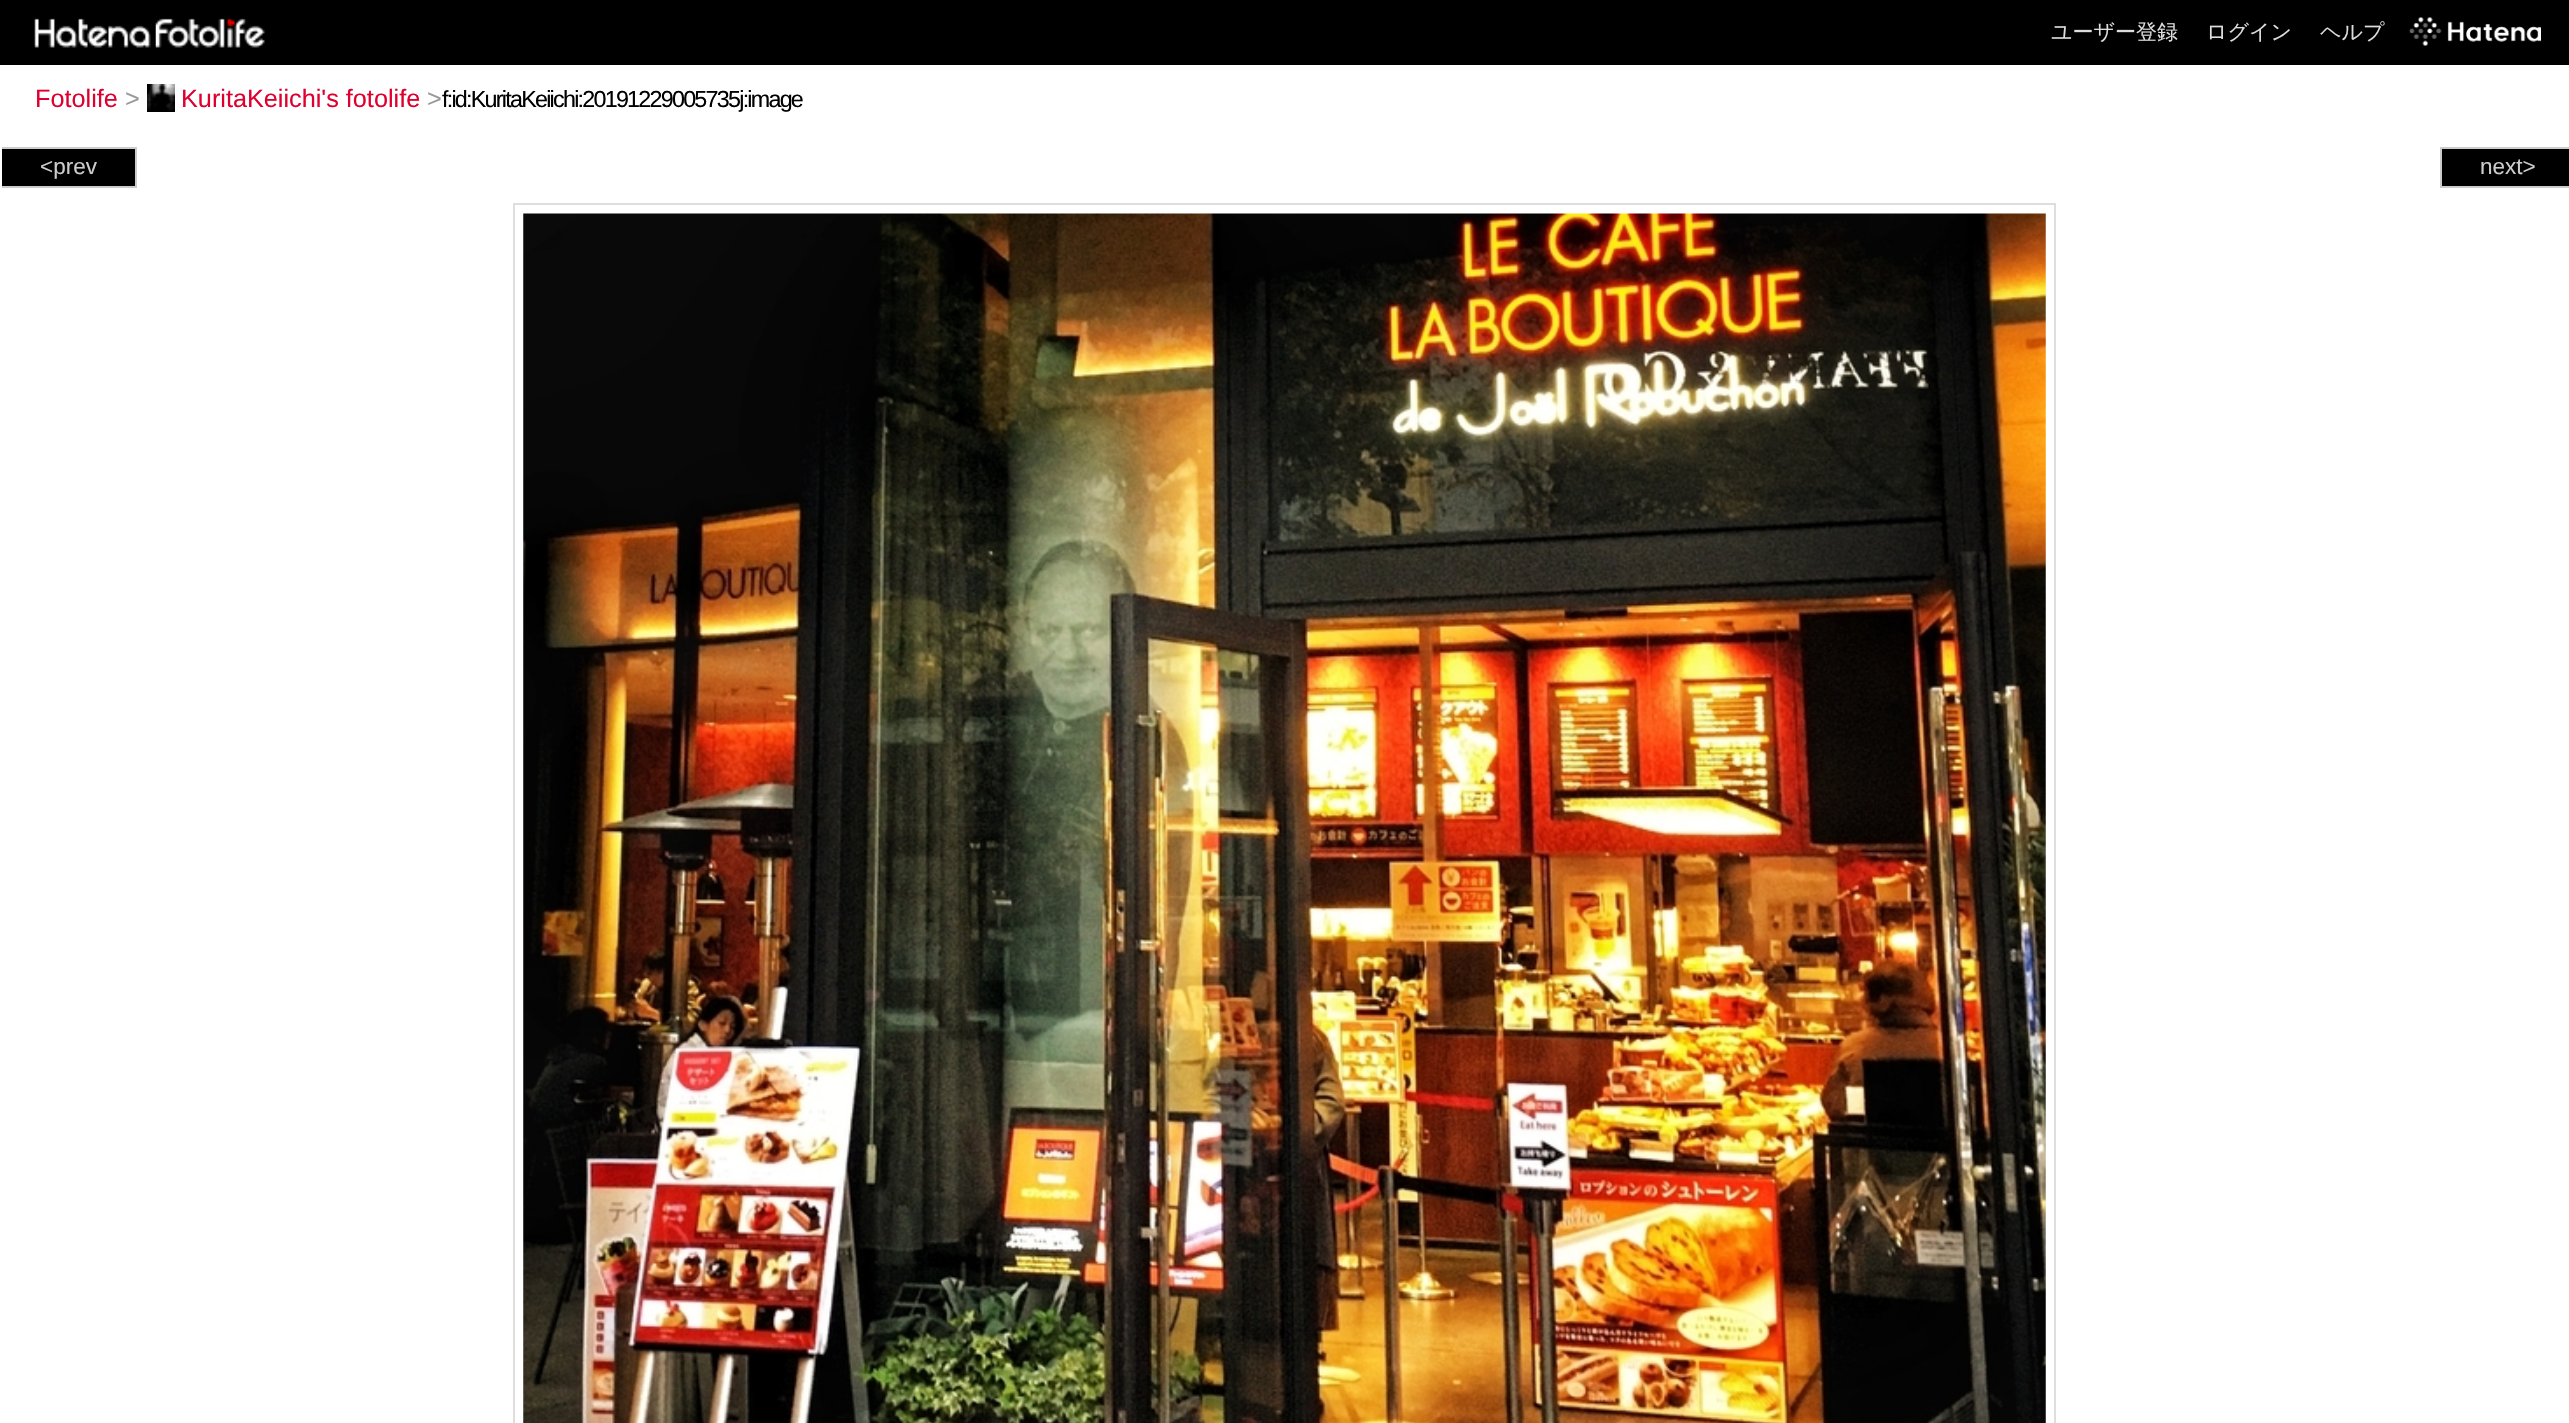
void draw(SkCanvas* canvas) {
    SkPaint paint;
    paint.setAntiAlias(true);
    auto spacedText = [&](const char* s, float x, float y, const SkFont& font, const SkPaint& ink, float letter, float word) {
        std::vector<SkGlyphID> glyphs(font.countText(s, strlen(s), SkTextEncoding::kUTF8));
        std::vector<float> xs(glyphs.size());
        font.textToGlyphs(s, strlen(s), SkTextEncoding::kUTF8, glyphs);
        font.getXPos(glyphs, xs, x);
        float extra = 0;
        for (size_t i = 0; i < glyphs.size(); i++) {
            xs[i] += extra;
            extra += letter + word * (glyphs[i] == font.unicharToGlyph(' '));
        }
        canvas->drawTextBlob(SkTextBlob::MakeFromPosHGlyphs(glyphs, xs, y, font), 0, 0, ink);
    };
    canvas->clear(0xFFFFFFFF);
    paint.setColor(0xFF000000);
    canvas->drawRect(SkRect::MakeXYWH(0, 0, 2569, 65), paint);
    canvas->drawImageRect(SkImages::DeferredFromEncodedData(SkData::MakeFromFileName("img1.png")), SkRect::MakeXYWH(34, 18, 117, 30), SkSamplingOptions());
    canvas->drawImageRect(SkImages::DeferredFromEncodedData(SkData::MakeFromFileName("img2.png")), SkRect::MakeXYWH(155, 18, 110, 30), SkSamplingOptions());
    SkFont font1(fontMgr->matchFamilyStyle("WenQuanYi Zen Hei", SkFontStyle(500, SkFontStyle::kNormal_Width, SkFontStyle::kUpright_Slant)), 21);
    font1.setSubpixel(true);
    paint.setColor(0xFFDDDDDD);
    canvas->drawString("ユーザー登録", 2051, 39, font1, paint);
    canvas->drawString("ログイン", 2206, 39, font1, paint);
    canvas->drawString("ヘルプ", 2320, 39, font1, paint);
    canvas->drawImageRect(SkImages::DeferredFromEncodedData(SkData::MakeFromFileName("img3.png")), SkRect::MakeXYWH(2409, 17, 132, 29), SkSamplingOptions());
    SkFont font2(fontMgr->matchFamilyStyle("Liberation Sans", SkFontStyle::Normal()), 25.25f);
    font2.setSubpixel(true);
    paint.setColor(0xFFDE002F);
    canvas->drawString("Fotolife", 35, 107, font2, paint);
    paint.setColor(0xFF999999);
    canvas->drawString(">", 125, 107, font2, paint);
    canvas->drawImageRect(SkImages::DeferredFromEncodedData(SkData::MakeFromFileName("img4.png")), SkRect::MakeXYWH(147, 84, 28, 28), SkSamplingOptions());
    paint.setColor(0xFFDE002F);
    canvas->drawString("KuritaKeiichi's fotolife", 181, 107, font2, paint);
    paint.setColor(0xFF999999);
    canvas->drawString(">", 427, 107, font2, paint);
    SkFont font3(fontMgr->matchFamilyStyle("Liberation Sans", SkFontStyle::Normal()), 23.3f);
    font3.setSubpixel(true);
    paint.setColor(0xFF000000);
    spacedText("f:id:KuritaKeiichi:20191229005735j:image", 442, 107, font3, paint, -1.75f, 0);
    canvas->drawRect(SkRect::MakeXYWH(2, 149, 133, 37), paint);
    paint.setColor(0xFFCCCCCC);
    canvas->drawRect(SkRect::MakeXYWH(2, 147, 135, 2), paint);
    canvas->drawRect(SkRect::MakeXYWH(135, 147, 2, 40), paint);
    canvas->drawRect(SkRect::MakeXYWH(2, 186, 135, 2), paint);
    SkFont font4(fontMgr->matchFamilyStyle("Liberation Sans", SkFontStyle::Normal()), 22.5f);
    font4.setSubpixel(true);
    canvas->drawString("<prev", 40, 174, font4, paint);
    paint.setColor(0xFF000000);
    canvas->drawRect(SkRect::MakeXYWH(2442, 149, 127, 37), paint);
    paint.setColor(0xFFCCCCCC);
    canvas->drawRect(SkRect::MakeXYWH(2440, 147, 129, 2), paint);
    canvas->drawRect(SkRect::MakeXYWH(2440, 186, 129, 2), paint);
    canvas->drawRect(SkRect::MakeXYWH(2440, 147, 2, 40), paint);
    canvas->drawString("next>", 2480, 174, font4, paint);
    paint.setStyle(SkPaint::kStroke_Style);
    paint.setStrokeWidth(2);
    paint.setColor(0xFFDEDEDE);
    canvas->drawRect(SkRect::MakeXYWH(514, 204, 1541, 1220), paint);
    canvas->drawImageRect(SkImages::DeferredFromEncodedData(SkData::MakeFromFileName("img5.png")), SkRect::MakeXYWH(523, 213, 1523, 1210), SkSamplingOptions());
}
